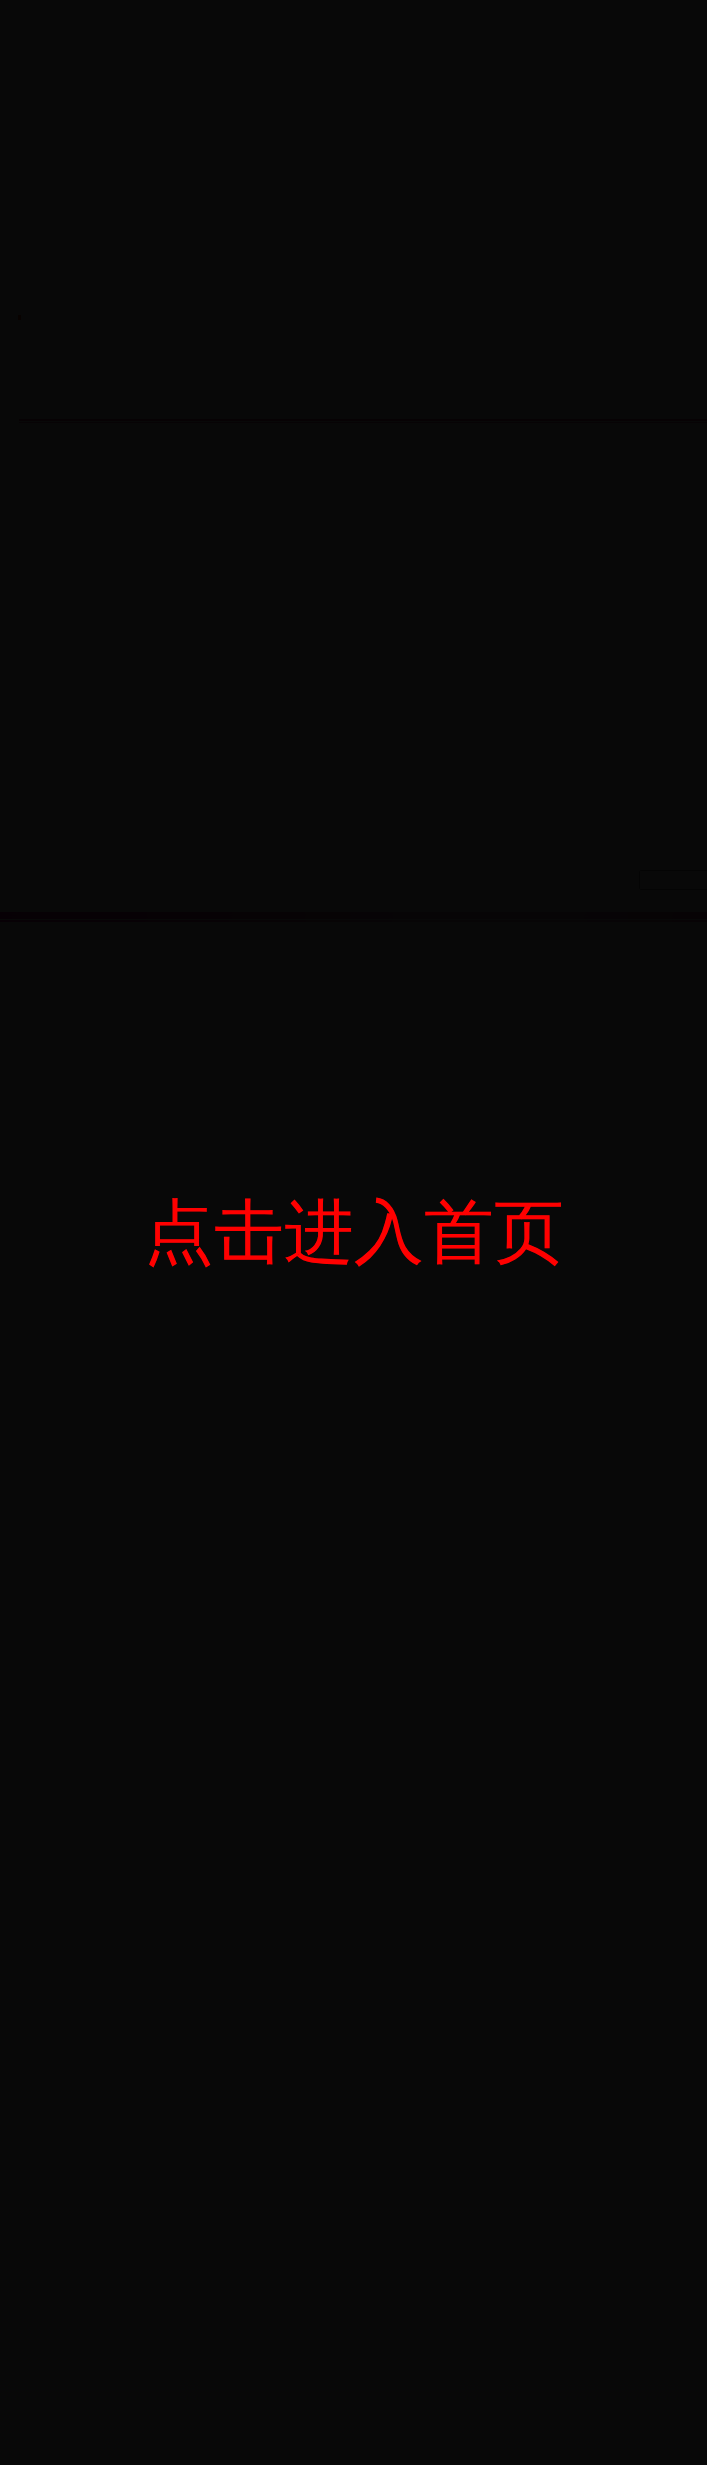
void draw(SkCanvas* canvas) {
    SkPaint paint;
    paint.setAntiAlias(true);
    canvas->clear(0xFF080808);
    paint.setColor(0xFF080200);
    canvas->drawRect(SkRect::MakeXYWH(18, 315, 3, 5), paint);
    paint.setColor(0xFF070305);
    canvas->drawRect(SkRect::MakeXYWH(19, 422, 688, 1), paint);
    paint.setColor(0xFF070204);
    canvas->drawRect(SkRect::MakeXYWH(19, 419, 688, 2), paint);
    paint.setStyle(SkPaint::kStroke_Style);
    paint.setStrokeWidth(1);
    paint.setColor(0xFF040404);
    canvas->drawRoundRect(SkRect::MakeXYWH(639.5f, 870.5f, 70, 19), 1.5f, 1.5f, paint);
    canvas->drawImageRect(SkImages::DeferredFromEncodedData(SkData::MakeFromFileName("img1.png")), SkRect::MakeXYWH(0, 912, 707, 10), SkSamplingOptions());
    SkFont font1(fontMgr->matchFamilyStyle("WenQuanYi Zen Hei", SkFontStyle(500, SkFontStyle::kNormal_Width, SkFontStyle::kUpright_Slant)), 70);
    font1.setSubpixel(true);
    paint.setStyle(SkPaint::kFill_Style);
    paint.setColor(0xFFFF0000);
    canvas->drawString("点击进入首页", 144, 1256, font1, paint);
}
